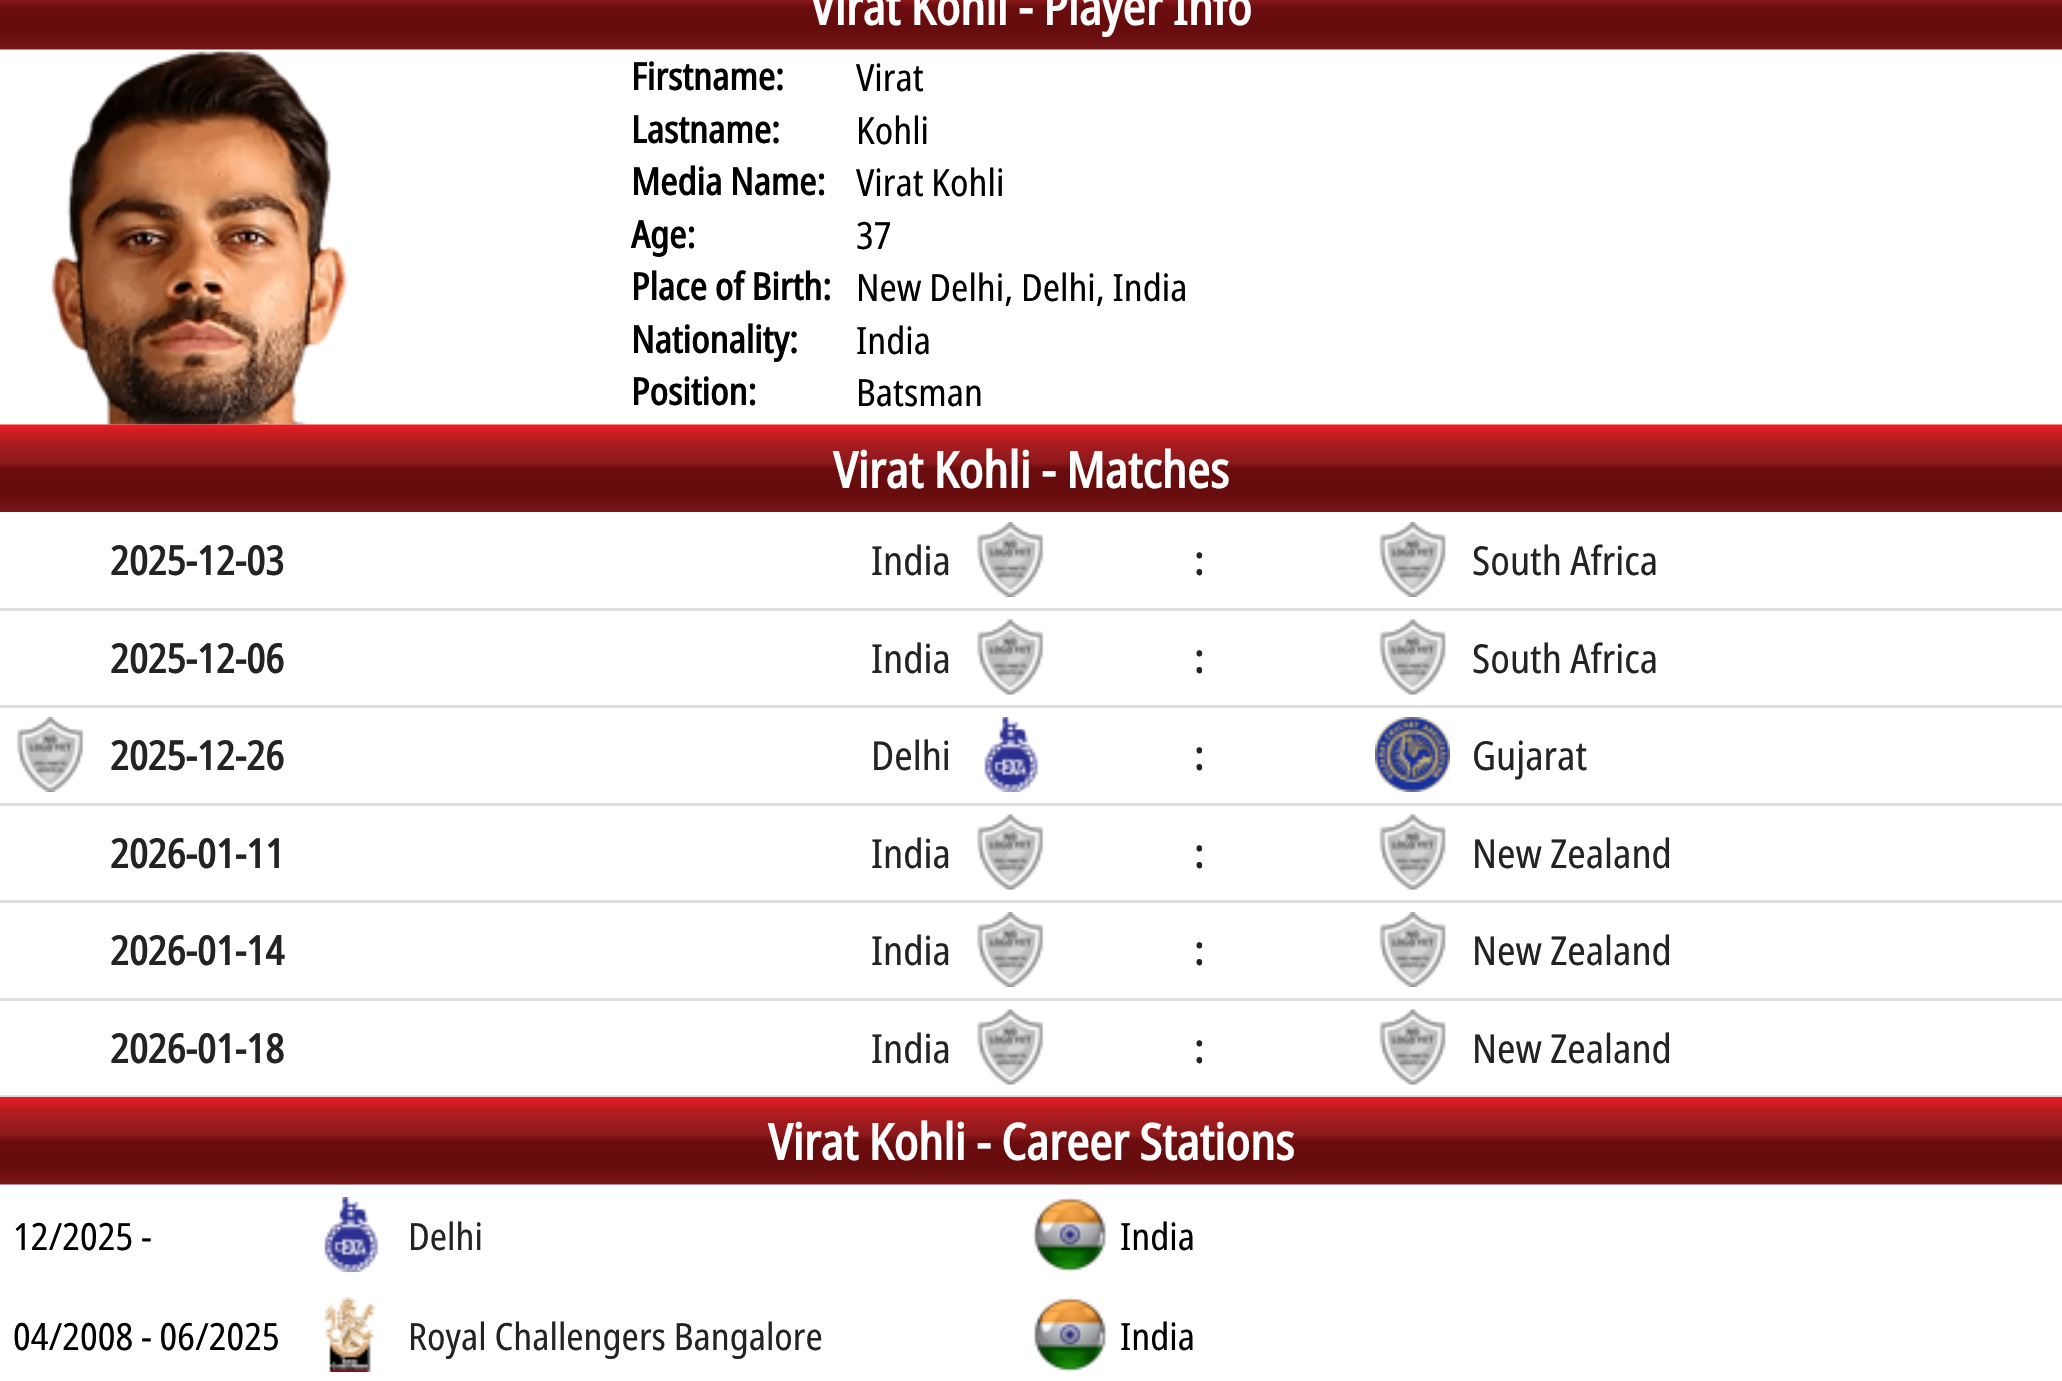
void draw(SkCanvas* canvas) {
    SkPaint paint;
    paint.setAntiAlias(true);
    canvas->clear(0xFFFFFFFF);
    canvas->drawImageRect(SkImages::DeferredFromEncodedData(SkData::MakeFromFileName("img2.png")), SkRect::MakeXYWH(50, 49, 299, 376), SkSamplingOptions());
    canvas->drawImageRect(SkImages::DeferredFromEncodedData(SkData::MakeFromFileName("img1.png")), SkRect::MakeXYWH(0, 0, 2062, 50), SkSamplingOptions());
    SkFont font1(fontMgr->matchFamilyStyle("Noto Sans", SkFontStyle::Bold()), 50);
    font1.setSubpixel(true);
    paint.setColor(0xFFFFFFFF);
    canvas->drawString("Virat Kohli - Player Info", 810, 25, font1, paint);
    SkFont font2(fontMgr->matchFamilyStyle("Noto Sans", SkFontStyle::Bold()), 37.5f);
    font2.setSubpixel(true);
    paint.setColor(0xFF000000);
    canvas->drawString("Firstname:", 631, 90, font2, paint);
    SkFont font3(fontMgr->matchFamilyStyle("Noto Sans", SkFontStyle::Normal()), 37.5f);
    font3.setSubpixel(true);
    canvas->drawString("Virat", 856, 91, font3, paint);
    canvas->drawString("Lastname:", 631, 143, font2, paint);
    canvas->drawString("Kohli", 856, 144, font3, paint);
    canvas->drawString("Media Name:", 631, 195, font2, paint);
    canvas->drawString("Virat Kohli", 856, 196, font3, paint);
    canvas->drawString("Age:", 631, 248, font2, paint);
    canvas->drawString("37", 856, 249, font3, paint);
    canvas->drawString("Place of Birth:", 631, 300, font2, paint);
    canvas->drawString("New Delhi, Delhi, India", 856, 301, font3, paint);
    canvas->drawString("Nationality:", 631, 353, font2, paint);
    canvas->drawString("India", 856, 354, font3, paint);
    canvas->drawString("Position:", 631, 405, font2, paint);
    canvas->drawString("Batsman", 856, 406, font3, paint);
    canvas->drawImageRect(SkImages::DeferredFromEncodedData(SkData::MakeFromFileName("img3.png")), SkRect::MakeXYWH(0, 424, 2062, 88), SkSamplingOptions());
    paint.setColor(0xFFFFFFFF);
    canvas->drawString("Virat Kohli - Matches", 833, 488, font1, paint);
    paint.setColor(0xFFDFDFDF);
    canvas->drawRect(SkRect::MakeXYWH(0, 608, 2062, 3), paint);
    SkFont font4(fontMgr->matchFamilyStyle("Noto Sans", SkFontStyle::Bold()), 40);
    font4.setSubpixel(true);
    paint.setColor(0xFF232323);
    canvas->drawString("2025-12-03", 110, 575, font4, paint);
    SkFont font5(fontMgr->matchFamilyStyle("Noto Sans", SkFontStyle::Normal()), 40);
    font5.setSubpixel(true);
    canvas->drawString("India", 871, 575, font5, paint);
    canvas->drawImageRect(SkImages::DeferredFromEncodedData(SkData::MakeFromFileName("img4.png")), SkRect::MakeXYWH(976, 522, 68, 75), SkSamplingOptions());
    canvas->drawString(":", 1194, 575, font4, paint);
    canvas->drawImageRect(SkImages::DeferredFromEncodedData(SkData::MakeFromFileName("img5.png")), SkRect::MakeXYWH(1379, 522, 67, 75), SkSamplingOptions());
    canvas->drawString("South Africa", 1472, 575, font5, paint);
    paint.setColor(0xFFDFDFDF);
    canvas->drawRect(SkRect::MakeXYWH(0, 705, 2062, 3), paint);
    paint.setColor(0xFF232323);
    canvas->drawString("2025-12-06", 110, 673, font4, paint);
    canvas->drawString("India", 871, 673, font5, paint);
    canvas->drawImageRect(SkImages::DeferredFromEncodedData(SkData::MakeFromFileName("img6.png")), SkRect::MakeXYWH(976, 619, 68, 76), SkSamplingOptions());
    canvas->drawString(":", 1194, 673, font4, paint);
    canvas->drawImageRect(SkImages::DeferredFromEncodedData(SkData::MakeFromFileName("img7.png")), SkRect::MakeXYWH(1379, 619, 67, 76), SkSamplingOptions());
    canvas->drawString("South Africa", 1472, 673, font5, paint);
    paint.setColor(0xFFDFDFDF);
    canvas->drawRect(SkRect::MakeXYWH(0, 803, 2062, 3), paint);
    canvas->drawImageRect(SkImages::DeferredFromEncodedData(SkData::MakeFromFileName("img8.png")), SkRect::MakeXYWH(16, 717, 68, 75), SkSamplingOptions());
    paint.setColor(0xFF232323);
    canvas->drawString("2025-12-26", 110, 770, font4, paint);
    canvas->drawString("Delhi", 871, 770, font5, paint);
    canvas->drawImageRect(SkImages::DeferredFromEncodedData(SkData::MakeFromFileName("img9.png")), SkRect::MakeXYWH(984, 717, 55, 75), SkSamplingOptions());
    canvas->drawString(":", 1194, 770, font4, paint);
    canvas->drawImageRect(SkImages::DeferredFromEncodedData(SkData::MakeFromFileName("img10.png")), SkRect::MakeXYWH(1375, 717, 75, 75), SkSamplingOptions());
    canvas->drawString("Gujarat", 1472, 770, font5, paint);
    paint.setColor(0xFFDFDFDF);
    canvas->drawRect(SkRect::MakeXYWH(0, 900, 2062, 3), paint);
    paint.setColor(0xFF232323);
    canvas->drawString("2026-01-11", 110, 868, font4, paint);
    canvas->drawString("India", 871, 868, font5, paint);
    canvas->drawImageRect(SkImages::DeferredFromEncodedData(SkData::MakeFromFileName("img6.png")), SkRect::MakeXYWH(976, 814, 68, 76), SkSamplingOptions());
    canvas->drawString(":", 1194, 868, font4, paint);
    canvas->drawImageRect(SkImages::DeferredFromEncodedData(SkData::MakeFromFileName("img7.png")), SkRect::MakeXYWH(1379, 814, 67, 76), SkSamplingOptions());
    canvas->drawString("New Zealand", 1472, 868, font5, paint);
    paint.setColor(0xFFDFDFDF);
    canvas->drawRect(SkRect::MakeXYWH(0, 998, 2062, 3), paint);
    paint.setColor(0xFF232323);
    canvas->drawString("2026-01-14", 110, 965, font4, paint);
    canvas->drawString("India", 871, 965, font5, paint);
    canvas->drawImageRect(SkImages::DeferredFromEncodedData(SkData::MakeFromFileName("img11.png")), SkRect::MakeXYWH(976, 912, 68, 75), SkSamplingOptions());
    canvas->drawString(":", 1194, 965, font4, paint);
    canvas->drawImageRect(SkImages::DeferredFromEncodedData(SkData::MakeFromFileName("img12.png")), SkRect::MakeXYWH(1379, 912, 67, 75), SkSamplingOptions());
    canvas->drawString("New Zealand", 1472, 965, font5, paint);
    paint.setColor(0xFFDFDFDF);
    canvas->drawRect(SkRect::MakeXYWH(0, 1095, 2062, 2), paint);
    paint.setColor(0xFF232323);
    canvas->drawString("2026-01-18", 110, 1063, font4, paint);
    canvas->drawString("India", 871, 1063, font5, paint);
    canvas->drawImageRect(SkImages::DeferredFromEncodedData(SkData::MakeFromFileName("img6.png")), SkRect::MakeXYWH(976, 1009, 68, 76), SkSamplingOptions());
    canvas->drawString(":", 1194, 1063, font4, paint);
    canvas->drawImageRect(SkImages::DeferredFromEncodedData(SkData::MakeFromFileName("img7.png")), SkRect::MakeXYWH(1379, 1009, 67, 76), SkSamplingOptions());
    canvas->drawString("New Zealand", 1472, 1063, font5, paint);
    canvas->drawImageRect(SkImages::DeferredFromEncodedData(SkData::MakeFromFileName("img13.png")), SkRect::MakeXYWH(0, 1097, 2062, 88), SkSamplingOptions());
    paint.setColor(0xFFFFFFFF);
    canvas->drawString("Virat Kohli - Career Stations", 768, 1160, font1, paint);
    paint.setColor(0xFF000000);
    canvas->drawString("12/2025 -", 13, 1250, font3, paint);
    canvas->drawImageRect(SkImages::DeferredFromEncodedData(SkData::MakeFromFileName("img14.png")), SkRect::MakeXYWH(324, 1197, 55, 75), SkSamplingOptions());
    paint.setColor(0xFF232323);
    canvas->drawString("Delhi", 408, 1250, font3, paint);
    canvas->drawImageRect(SkImages::DeferredFromEncodedData(SkData::MakeFromFileName("img15.png")), SkRect::MakeXYWH(1033, 1197, 74, 75), SkSamplingOptions());
    paint.setColor(0xFF000000);
    canvas->drawString("India", 1120, 1250, font3, paint);
    canvas->drawString("04/2008 - 06/2025", 13, 1350, font3, paint);
    canvas->drawImageRect(SkImages::DeferredFromEncodedData(SkData::MakeFromFileName("img16.png")), SkRect::MakeXYWH(324, 1297, 52, 75), SkSamplingOptions());
    paint.setColor(0xFF232323);
    canvas->drawString("Royal Challengers Bangalore", 408, 1350, font3, paint);
    canvas->drawImageRect(SkImages::DeferredFromEncodedData(SkData::MakeFromFileName("img15.png")), SkRect::MakeXYWH(1033, 1297, 74, 75), SkSamplingOptions());
    paint.setColor(0xFF000000);
    canvas->drawString("India", 1120, 1350, font3, paint);
}
